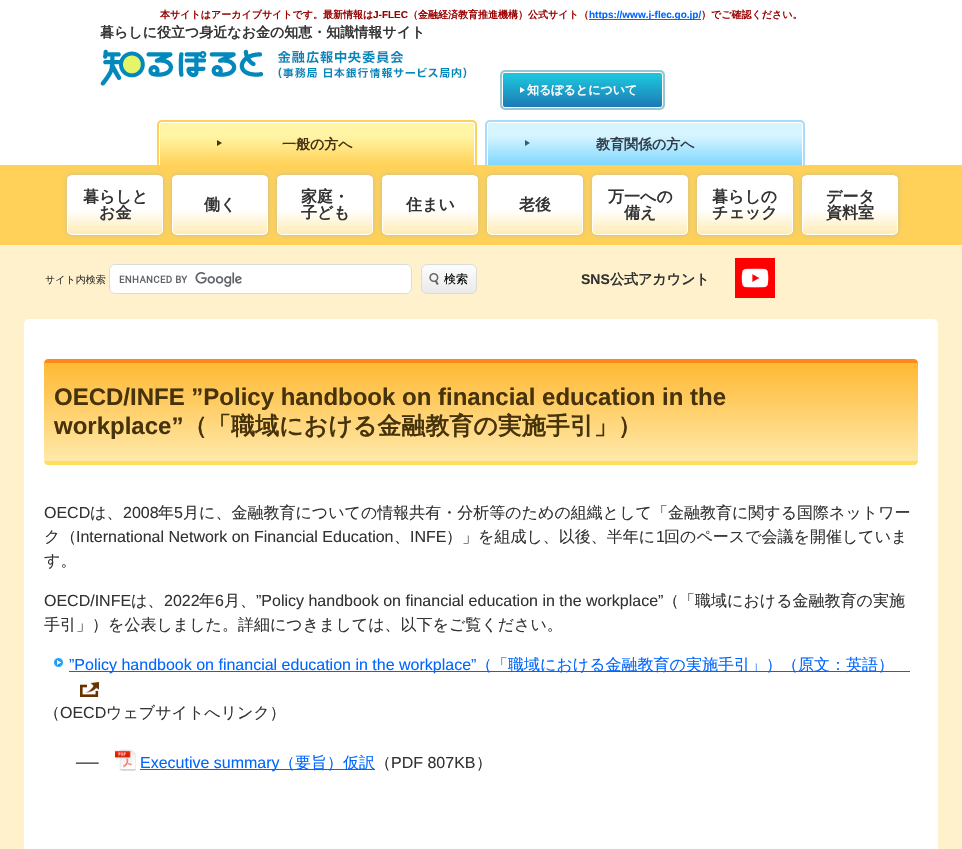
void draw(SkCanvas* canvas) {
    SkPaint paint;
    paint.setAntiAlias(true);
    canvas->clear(0xFFFFFFFF);
    SkFont font1(fontMgr->matchFamilyStyle("WenQuanYi Zen Hei", SkFontStyle::Bold()), 10);
    font1.setSubpixel(true);
    paint.setColor(0xFF990000);
    canvas->drawString("本サイトはアーカイブサイトです。最新情報は", 160, 18, font1, paint);
    SkFont font2(fontMgr->matchFamilyStyle("Liberation Sans", SkFontStyle::Bold()), 10);
    font2.setSubpixel(true);
    canvas->drawString("J-FLEC", 373, 18, font2, paint);
    canvas->drawString("（金融経済教育推進機構）公式サイト（", 408, 18, font1, paint);
    paint.setColor(0xFF0066FF);
    canvas->drawRect(SkRect::MakeXYWH(589, 19, 112, 1), paint);
    canvas->drawString("https://www.j-flec.go.jp/", 589, 18, font2, paint);
    paint.setColor(0xFF990000);
    canvas->drawString("）でご確認ください。", 701, 18, font1, paint);
    SkFont font3(fontMgr->matchFamilyStyle("WenQuanYi Zen Hei", SkFontStyle::Bold()), 14);
    font3.setSubpixel(true);
    paint.setColor(0xFF333333);
    canvas->drawString("暮らしに役立つ身近なお金の知恵・知識情報サイト", 100, 37, font3, paint);
    canvas->drawImageRect(SkImages::DeferredFromEncodedData(SkData::MakeFromFileName("img1.png")), SkRect::MakeXYWH(100, 49, 367, 37), SkSamplingOptions());
    paint.setColor(0xFF95C8D1);
    canvas->drawRoundRect(SkRect::MakeXYWH(500, 70, 165, 40), 5, 5, paint);
    canvas->save();
    canvas->clipPath(SkPathBuilder().moveTo(505, 72).lineTo(660, 72).cubicTo(661.5f, 72, 663, 73.5f, 663, 75).lineTo(663, 105).cubicTo(663, 106.5f, 661.5f, 108, 660, 108).lineTo(505, 108).cubicTo(503.5f, 108, 502, 106.5f, 502, 105).lineTo(502, 75).cubicTo(502, 73.5f, 503.5f, 72, 505, 72).close().detach(), true);
    {
        const SkColor colors[] = {0xFF1EC2DC, 0xFF1C7AB3};
        const float stops[] = {0.1f, 1};
        const SkPoint ends[] = {{583, 73}, {583, 107}};
        paint.setShader(SkGradientShader::MakeLinear(ends, colors, stops, 2, SkTileMode::kClamp));
        paint.setAlpha(255);
    }
    canvas->drawRect(SkRect::MakeXYWH(502, 73, 161, 34), paint);
    canvas->restore();
    paint.setStyle(SkPaint::kStroke_Style);
    paint.setStrokeWidth(1);
    paint.setShader(nullptr);
    paint.setColor(0xFFFFFFFF);
    canvas->drawRoundRect(SkRect::MakeXYWH(502.5f, 72.5f, 160, 35), 2.5f, 2.5f, paint);
    paint.setStyle(SkPaint::kFill_Style);
    canvas->drawPath(SkPathBuilder().moveTo(520, 93).lineTo(520, 87).lineTo(525, 90).close().detach(), paint);
    SkFont font4(fontMgr->matchFamilyStyle("WenQuanYi Zen Hei", SkFontStyle::Bold()), 12);
    font4.setSubpixel(true);
    canvas->drawString("知るぽるとについて", 527, 94, font4, paint);
    paint.setColor(0xFFFFD158);
    canvas->drawPath(SkPathBuilder().moveTo(162, 120).lineTo(472, 120).cubicTo(475, 120, 477, 122, 477, 125).lineTo(477, 165).lineTo(157, 165).lineTo(157, 125).cubicTo(157, 122, 159, 120, 162, 120).close().detach(), paint);
    {
        const SkColor colors[] = {0xFFFFF5A5, 0xFFFFD158};
        const float stops[] = {0.3f, 1};
        const SkPoint ends[] = {{317, 123}, {317, 165}};
        paint.setShader(SkGradientShader::MakeLinear(ends, colors, stops, 2, SkTileMode::kClamp));
        paint.setAlpha(255);
    }
    canvas->drawPath(SkPathBuilder().moveTo(162, 123).lineTo(472, 123).cubicTo(473, 123, 474, 124, 474, 125).lineTo(474, 165).lineTo(160, 165).lineTo(160, 125).cubicTo(160, 124, 161, 123, 162, 123).close().detach(), paint);
    paint.setShader(nullptr);
    paint.setColor(0xFFFFFFFF);
    canvas->drawPath(SkPathBuilder(SkPathFillType::kEvenOdd).moveTo(162, 122).lineTo(472, 122).cubicTo(474, 122, 475, 123, 475, 125).lineTo(475, 165).lineTo(159, 165).lineTo(159, 125).cubicTo(159, 123, 160, 122, 162, 122).close().moveTo(162, 123).lineTo(472, 123).cubicTo(473, 123, 474, 124, 474, 125).lineTo(474, 165).lineTo(160, 165).lineTo(160, 125).cubicTo(160, 124, 161, 123, 162, 123).close().detach(), paint);
    paint.setColor(0xFF453214);
    canvas->drawPath(SkPathBuilder().moveTo(217, 146).lineTo(217, 140).lineTo(222, 143).close().detach(), paint);
    canvas->drawString("一般の方へ", 282, 149, font3, paint);
    paint.setColor(0xFFA8DBFC);
    canvas->drawPath(SkPathBuilder().moveTo(490, 120).lineTo(800, 120).cubicTo(803, 120, 805, 122, 805, 125).lineTo(805, 165).lineTo(485, 165).lineTo(485, 125).cubicTo(485, 122, 487, 120, 490, 120).close().detach(), paint);
    {
        const SkColor colors[] = {0xFFD6F5FF, 0xFF80D7FF};
        const float stops[] = {0.3f, 1};
        const SkPoint ends[] = {{645, 123}, {645, 165}};
        paint.setShader(SkGradientShader::MakeLinear(ends, colors, stops, 2, SkTileMode::kClamp));
        paint.setAlpha(255);
    }
    canvas->drawPath(SkPathBuilder().moveTo(490, 123).lineTo(800, 123).cubicTo(801, 123, 802, 124, 802, 125).lineTo(802, 165).lineTo(488, 165).lineTo(488, 125).cubicTo(488, 124, 489, 123, 490, 123).close().detach(), paint);
    paint.setShader(nullptr);
    paint.setColor(0xFFFFFFFF);
    canvas->drawPath(SkPathBuilder(SkPathFillType::kEvenOdd).moveTo(490, 122).lineTo(800, 122).cubicTo(802, 122, 803, 123, 803, 125).lineTo(803, 165).lineTo(487, 165).lineTo(487, 125).cubicTo(487, 123, 488, 122, 490, 122).close().moveTo(490, 123).lineTo(800, 123).cubicTo(801, 123, 802, 124, 802, 125).lineTo(802, 165).lineTo(488, 165).lineTo(488, 125).cubicTo(488, 124, 489, 123, 490, 123).close().detach(), paint);
    paint.setColor(0xFF3E5C6B);
    canvas->drawPath(SkPathBuilder().moveTo(525, 146).lineTo(525, 140).lineTo(530, 143).close().detach(), paint);
    paint.setColor(0xFF333D4B);
    canvas->drawString("教育関係の方へ", 596, 149, font3, paint);
    paint.setColor(0xFFFFD158);
    canvas->drawRect(SkRect::MakeXYWH(0, 165, 962, 80), paint);
    paint.setColor(0xFFC6BF9E);
    paint.setMaskFilter(SkMaskFilter::MakeBlur(kNormal_SkBlurStyle, 2.5f));
    canvas->drawRoundRect(SkRect::MakeXYWH(67, 175, 96, 60), 5, 5, paint);
    paint.setMaskFilter(nullptr);
    canvas->save();
    canvas->clipPath(SkPathBuilder().moveTo(72, 175).lineTo(158, 175).cubicTo(161, 175, 163, 177, 163, 180).lineTo(163, 230).cubicTo(163, 233, 161, 235, 158, 235).lineTo(72, 235).cubicTo(69, 235, 67, 233, 67, 230).lineTo(67, 180).cubicTo(67, 177, 69, 175, 72, 175).close().detach(), true);
    {
        const SkColor colors[] = {0xFFFFFFFF, 0xFFFFEBB4};
        const float stops[] = {0.58f, 1};
        const SkPoint ends[] = {{115, 176}, {115, 234}};
        paint.setShader(SkGradientShader::MakeLinear(ends, colors, stops, 2, SkTileMode::kClamp));
        paint.setAlpha(255);
    }
    canvas->drawRect(SkRect::MakeXYWH(67, 176, 96, 58), paint);
    canvas->restore();
    paint.setStyle(SkPaint::kStroke_Style);
    paint.setShader(nullptr);
    paint.setColor(0xFFFFFFFF);
    canvas->drawRoundRect(SkRect::MakeXYWH(67.5f, 175.5f, 95, 59), 4.5f, 4.5f, paint);
    SkFont font5(fontMgr->matchFamilyStyle("WenQuanYi Zen Hei", SkFontStyle::Bold()), 16);
    font5.setSubpixel(true);
    paint.setStyle(SkPaint::kFill_Style);
    paint.setColor(0xFF333333);
    canvas->drawString("暮らしと", 83, 202, font5, paint);
    canvas->drawString("お金", 99, 218, font5, paint);
    paint.setColor(0xFFC6BF9E);
    paint.setMaskFilter(SkMaskFilter::MakeBlur(kNormal_SkBlurStyle, 2.5f));
    canvas->drawRoundRect(SkRect::MakeXYWH(172, 175, 96, 60), 5, 5, paint);
    paint.setMaskFilter(nullptr);
    canvas->save();
    canvas->clipPath(SkPathBuilder().moveTo(177, 175).lineTo(263, 175).cubicTo(266, 175, 268, 177, 268, 180).lineTo(268, 230).cubicTo(268, 233, 266, 235, 263, 235).lineTo(177, 235).cubicTo(174, 235, 172, 233, 172, 230).lineTo(172, 180).cubicTo(172, 177, 174, 175, 177, 175).close().detach(), true);
    {
        const SkColor colors[] = {0xFFFFFFFF, 0xFFFFEBB4};
        const float stops[] = {0.58f, 1};
        const SkPoint ends[] = {{220, 176}, {220, 234}};
        paint.setShader(SkGradientShader::MakeLinear(ends, colors, stops, 2, SkTileMode::kClamp));
        paint.setAlpha(255);
    }
    canvas->drawRect(SkRect::MakeXYWH(172, 176, 96, 58), paint);
    canvas->restore();
    paint.setStyle(SkPaint::kStroke_Style);
    paint.setShader(nullptr);
    paint.setColor(0xFFFFFFFF);
    canvas->drawRoundRect(SkRect::MakeXYWH(172.5f, 175.5f, 95, 59), 4.5f, 4.5f, paint);
    paint.setStyle(SkPaint::kFill_Style);
    paint.setColor(0xFF333333);
    canvas->drawString("働く", 204, 210, font5, paint);
    paint.setColor(0xFFC6BF9E);
    paint.setMaskFilter(SkMaskFilter::MakeBlur(kNormal_SkBlurStyle, 2.5f));
    canvas->drawRoundRect(SkRect::MakeXYWH(277, 175, 96, 60), 5, 5, paint);
    paint.setMaskFilter(nullptr);
    canvas->save();
    canvas->clipPath(SkPathBuilder().moveTo(282, 175).lineTo(368, 175).cubicTo(371, 175, 373, 177, 373, 180).lineTo(373, 230).cubicTo(373, 233, 371, 235, 368, 235).lineTo(282, 235).cubicTo(279, 235, 277, 233, 277, 230).lineTo(277, 180).cubicTo(277, 177, 279, 175, 282, 175).close().detach(), true);
    {
        const SkColor colors[] = {0xFFFFFFFF, 0xFFFFEBB4};
        const float stops[] = {0.58f, 1};
        const SkPoint ends[] = {{325, 176}, {325, 234}};
        paint.setShader(SkGradientShader::MakeLinear(ends, colors, stops, 2, SkTileMode::kClamp));
        paint.setAlpha(255);
    }
    canvas->drawRect(SkRect::MakeXYWH(277, 176, 96, 58), paint);
    canvas->restore();
    paint.setStyle(SkPaint::kStroke_Style);
    paint.setShader(nullptr);
    paint.setColor(0xFFFFFFFF);
    canvas->drawRoundRect(SkRect::MakeXYWH(277.5f, 175.5f, 95, 59), 4.5f, 4.5f, paint);
    paint.setStyle(SkPaint::kFill_Style);
    paint.setColor(0xFF333333);
    canvas->drawString("家庭・", 301, 202, font5, paint);
    canvas->drawString("子ども", 301, 218, font5, paint);
    paint.setColor(0xFFC6BF9E);
    paint.setMaskFilter(SkMaskFilter::MakeBlur(kNormal_SkBlurStyle, 2.5f));
    canvas->drawRoundRect(SkRect::MakeXYWH(382, 175, 96, 60), 5, 5, paint);
    paint.setMaskFilter(nullptr);
    canvas->save();
    canvas->clipPath(SkPathBuilder().moveTo(387, 175).lineTo(473, 175).cubicTo(476, 175, 478, 177, 478, 180).lineTo(478, 230).cubicTo(478, 233, 476, 235, 473, 235).lineTo(387, 235).cubicTo(384, 235, 382, 233, 382, 230).lineTo(382, 180).cubicTo(382, 177, 384, 175, 387, 175).close().detach(), true);
    {
        const SkColor colors[] = {0xFFFFFFFF, 0xFFFFEBB4};
        const float stops[] = {0.58f, 1};
        const SkPoint ends[] = {{430, 176}, {430, 234}};
        paint.setShader(SkGradientShader::MakeLinear(ends, colors, stops, 2, SkTileMode::kClamp));
        paint.setAlpha(255);
    }
    canvas->drawRect(SkRect::MakeXYWH(382, 176, 96, 58), paint);
    canvas->restore();
    paint.setStyle(SkPaint::kStroke_Style);
    paint.setShader(nullptr);
    paint.setColor(0xFFFFFFFF);
    canvas->drawRoundRect(SkRect::MakeXYWH(382.5f, 175.5f, 95, 59), 4.5f, 4.5f, paint);
    paint.setStyle(SkPaint::kFill_Style);
    paint.setColor(0xFF333333);
    canvas->drawString("住まい", 406, 210, font5, paint);
    paint.setColor(0xFFC6BF9E);
    paint.setMaskFilter(SkMaskFilter::MakeBlur(kNormal_SkBlurStyle, 2.5f));
    canvas->drawRoundRect(SkRect::MakeXYWH(487, 175, 96, 60), 5, 5, paint);
    paint.setMaskFilter(nullptr);
    canvas->save();
    canvas->clipPath(SkPathBuilder().moveTo(492, 175).lineTo(578, 175).cubicTo(581, 175, 583, 177, 583, 180).lineTo(583, 230).cubicTo(583, 233, 581, 235, 578, 235).lineTo(492, 235).cubicTo(489, 235, 487, 233, 487, 230).lineTo(487, 180).cubicTo(487, 177, 489, 175, 492, 175).close().detach(), true);
    {
        const SkColor colors[] = {0xFFFFFFFF, 0xFFFFEBB4};
        const float stops[] = {0.58f, 1};
        const SkPoint ends[] = {{535, 176}, {535, 234}};
        paint.setShader(SkGradientShader::MakeLinear(ends, colors, stops, 2, SkTileMode::kClamp));
        paint.setAlpha(255);
    }
    canvas->drawRect(SkRect::MakeXYWH(487, 176, 96, 58), paint);
    canvas->restore();
    paint.setStyle(SkPaint::kStroke_Style);
    paint.setShader(nullptr);
    paint.setColor(0xFFFFFFFF);
    canvas->drawRoundRect(SkRect::MakeXYWH(487.5f, 175.5f, 95, 59), 4.5f, 4.5f, paint);
    paint.setStyle(SkPaint::kFill_Style);
    paint.setColor(0xFF333333);
    canvas->drawString("老後", 519, 210, font5, paint);
    paint.setColor(0xFFC6BF9E);
    paint.setMaskFilter(SkMaskFilter::MakeBlur(kNormal_SkBlurStyle, 2.5f));
    canvas->drawRoundRect(SkRect::MakeXYWH(592, 175, 96, 60), 5, 5, paint);
    paint.setMaskFilter(nullptr);
    canvas->save();
    canvas->clipPath(SkPathBuilder().moveTo(597, 175).lineTo(683, 175).cubicTo(686, 175, 688, 177, 688, 180).lineTo(688, 230).cubicTo(688, 233, 686, 235, 683, 235).lineTo(597, 235).cubicTo(594, 235, 592, 233, 592, 230).lineTo(592, 180).cubicTo(592, 177, 594, 175, 597, 175).close().detach(), true);
    {
        const SkColor colors[] = {0xFFFFFFFF, 0xFFFFEBB4};
        const float stops[] = {0.58f, 1};
        const SkPoint ends[] = {{640, 176}, {640, 234}};
        paint.setShader(SkGradientShader::MakeLinear(ends, colors, stops, 2, SkTileMode::kClamp));
        paint.setAlpha(255);
    }
    canvas->drawRect(SkRect::MakeXYWH(592, 176, 96, 58), paint);
    canvas->restore();
    paint.setStyle(SkPaint::kStroke_Style);
    paint.setShader(nullptr);
    paint.setColor(0xFFFFFFFF);
    canvas->drawRoundRect(SkRect::MakeXYWH(592.5f, 175.5f, 95, 59), 4.5f, 4.5f, paint);
    paint.setStyle(SkPaint::kFill_Style);
    paint.setColor(0xFF333333);
    canvas->drawString("万一への", 608, 202, font5, paint);
    canvas->drawString("備え", 624, 218, font5, paint);
    paint.setColor(0xFFC6BF9E);
    paint.setMaskFilter(SkMaskFilter::MakeBlur(kNormal_SkBlurStyle, 2.5f));
    canvas->drawRoundRect(SkRect::MakeXYWH(697, 175, 96, 60), 5, 5, paint);
    paint.setMaskFilter(nullptr);
    canvas->save();
    canvas->clipPath(SkPathBuilder().moveTo(702, 175).lineTo(788, 175).cubicTo(791, 175, 793, 177, 793, 180).lineTo(793, 230).cubicTo(793, 233, 791, 235, 788, 235).lineTo(702, 235).cubicTo(699, 235, 697, 233, 697, 230).lineTo(697, 180).cubicTo(697, 177, 699, 175, 702, 175).close().detach(), true);
    {
        const SkColor colors[] = {0xFFFFFFFF, 0xFFFFEBB4};
        const float stops[] = {0.58f, 1};
        const SkPoint ends[] = {{745, 176}, {745, 234}};
        paint.setShader(SkGradientShader::MakeLinear(ends, colors, stops, 2, SkTileMode::kClamp));
        paint.setAlpha(255);
    }
    canvas->drawRect(SkRect::MakeXYWH(697, 176, 96, 58), paint);
    canvas->restore();
    paint.setStyle(SkPaint::kStroke_Style);
    paint.setShader(nullptr);
    paint.setColor(0xFFFFFFFF);
    canvas->drawRoundRect(SkRect::MakeXYWH(697.5f, 175.5f, 95, 59), 4.5f, 4.5f, paint);
    paint.setStyle(SkPaint::kFill_Style);
    paint.setColor(0xFF333333);
    canvas->drawString("暮らしの", 712, 202, font5, paint);
    canvas->drawString("チェック", 712, 218, font5, paint);
    paint.setColor(0xFFC6BF9E);
    paint.setMaskFilter(SkMaskFilter::MakeBlur(kNormal_SkBlurStyle, 2.5f));
    canvas->drawRoundRect(SkRect::MakeXYWH(802, 175, 96, 60), 5, 5, paint);
    paint.setMaskFilter(nullptr);
    canvas->save();
    canvas->clipPath(SkPathBuilder().moveTo(807, 175).lineTo(893, 175).cubicTo(896, 175, 898, 177, 898, 180).lineTo(898, 230).cubicTo(898, 233, 896, 235, 893, 235).lineTo(807, 235).cubicTo(804, 235, 802, 233, 802, 230).lineTo(802, 180).cubicTo(802, 177, 804, 175, 807, 175).close().detach(), true);
    {
        const SkColor colors[] = {0xFFFFFFFF, 0xFFFFEBB4};
        const float stops[] = {0.58f, 1};
        const SkPoint ends[] = {{850, 176}, {850, 234}};
        paint.setShader(SkGradientShader::MakeLinear(ends, colors, stops, 2, SkTileMode::kClamp));
        paint.setAlpha(255);
    }
    canvas->drawRect(SkRect::MakeXYWH(802, 176, 96, 58), paint);
    canvas->restore();
    paint.setStyle(SkPaint::kStroke_Style);
    paint.setShader(nullptr);
    paint.setColor(0xFFFFFFFF);
    canvas->drawRoundRect(SkRect::MakeXYWH(802.5f, 175.5f, 95, 59), 4.5f, 4.5f, paint);
    paint.setStyle(SkPaint::kFill_Style);
    paint.setColor(0xFF333333);
    canvas->drawString("データ", 826, 202, font5, paint);
    canvas->drawString("資料室", 826, 218, font5, paint);
    paint.setColor(0xFFFFF1CB);
    canvas->drawRect(SkRect::MakeXYWH(0, 245, 962, 604), paint);
    SkFont font6(fontMgr->matchFamilyStyle("WenQuanYi Zen Hei", SkFontStyle(500, SkFontStyle::kNormal_Width, SkFontStyle::kUpright_Slant)), 10);
    font6.setSubpixel(true);
    paint.setColor(0xFF333333);
    canvas->drawString("サイト内検索", 45, 283, font6, paint);
    paint.setColor(0xFFFFFFFF);
    canvas->drawRoundRect(SkRect::MakeXYWH(109, 264, 303, 30), 6, 6, paint);
    canvas->drawImageRect(SkImages::DeferredFromEncodedData(SkData::MakeFromFileName("img2.png")), SkRect::MakeXYWH(119, 272, 123, 15), SkSamplingOptions());
    paint.setStyle(SkPaint::kStroke_Style);
    paint.setColor(0xFFDBDBDB);
    canvas->drawRoundRect(SkRect::MakeXYWH(109.5f, 264.5f, 302, 29), 5.5f, 5.5f, paint);
    canvas->save();
    canvas->clipPath(SkPathBuilder().moveTo(427, 264).lineTo(471, 264).cubicTo(474.5f, 264, 477, 266.5f, 477, 270).lineTo(477, 288).cubicTo(477, 291.5f, 474.5f, 294, 471, 294).lineTo(427, 294).cubicTo(423.5f, 294, 421, 291.5f, 421, 288).lineTo(421, 270).cubicTo(421, 266.5f, 423.5f, 264, 427, 264).close().detach(), true);
    paint.setStyle(SkPaint::kFill_Style);
    {
        const SkColor colors[] = {0xFFFBFBFB, 0xFFEAEAEA};
        const float stops[] = {0.1f, 1};
        const SkPoint ends[] = {{449, 265}, {449, 293}};
        paint.setShader(SkGradientShader::MakeLinear(ends, colors, stops, 2, SkTileMode::kClamp));
        paint.setAlpha(255);
    }
    canvas->drawRect(SkRect::MakeXYWH(421, 265, 56, 28), paint);
    canvas->restore();
    paint.setStyle(SkPaint::kStroke_Style);
    paint.setShader(nullptr);
    paint.setColor(0xFFDBDBDB);
    canvas->drawRoundRect(SkRect::MakeXYWH(421.5f, 264.5f, 55, 29), 5.5f, 5.5f, paint);
    canvas->drawImageRect(SkImages::DeferredFromEncodedData(SkData::MakeFromFileName("img3.png")), SkRect::MakeXYWH(429, 273, 10, 12), SkSamplingOptions());
    SkFont font7(fontMgr->matchFamilyStyle("WenQuanYi Zen Hei", SkFontStyle(500, SkFontStyle::kNormal_Width, SkFontStyle::kUpright_Slant)), 12);
    font7.setSubpixel(true);
    paint.setStyle(SkPaint::kFill_Style);
    paint.setColor(0xFF000000);
    canvas->drawString("検索", 444, 283, font7, paint);
    SkFont font8(fontMgr->matchFamilyStyle("Liberation Sans", SkFontStyle::Bold()), 14);
    font8.setSubpixel(true);
    paint.setColor(0xFF333333);
    canvas->drawString("SNS", 581, 284, font8, paint);
    canvas->drawString("公式アカウント", 610, 284, font3, paint);
    canvas->drawImageRect(SkImages::DeferredFromEncodedData(SkData::MakeFromFileName("img4.png")), SkRect::MakeXYWH(735, 258, 40, 40), SkSamplingOptions());
    paint.setColor(0xFFFFFFFF);
    canvas->drawRoundRect(SkRect::MakeXYWH(24, 319, 914, 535), 5, 5, paint);
    {
        const SkColor colors[] = {0xFFFFB933, 0xFFFFE9AA};
        const float stops[] = {0, 1};
        const SkPoint ends[] = {{481, 363}, {481, 461}};
        paint.setShader(SkGradientShader::MakeLinear(ends, colors, stops, 2, SkTileMode::kClamp));
        paint.setAlpha(255);
    }
    canvas->drawRect(SkRect::MakeXYWH(44, 363, 874, 98), paint);
    paint.setShader(nullptr);
    paint.setColor(0xFFFF891B);
    canvas->drawPath(SkPathBuilder().moveTo(48, 359).cubicTo(46, 359, 44, 361, 44, 363).lineTo(918, 363).cubicTo(918, 361, 916, 359, 914, 359).close().detach(), paint);
    paint.setColor(0xFFFFDD5F);
    canvas->drawPath(SkPathBuilder().moveTo(914, 465).cubicTo(916, 465, 918, 463, 918, 461).lineTo(44, 461).cubicTo(44, 463, 46, 465, 48, 465).close().detach(), paint);
    SkFont font9(fontMgr->matchFamilyStyle("Liberation Sans", SkFontStyle::Bold()), 24);
    font9.setSubpixel(true);
    paint.setColor(0xFF46330B);
    canvas->drawString("OECD/INFE ”Policy handbook on financial education in the", 54, 405, font9, paint);
    canvas->drawString("workplace”", 54, 434, font9, paint);
    SkFont font10(fontMgr->matchFamilyStyle("WenQuanYi Zen Hei", SkFontStyle::Bold()), 24);
    font10.setSubpixel(true);
    canvas->drawString("（「職域における金融教育の実施手引」）", 183, 434, font10, paint);
    SkFont font11(fontMgr->matchFamilyStyle("Liberation Sans", SkFontStyle::Normal()), 16);
    font11.setSubpixel(true);
    paint.setColor(0xFF333333);
    canvas->drawString("OECD", 44, 518, font11, paint);
    SkFont font12(fontMgr->matchFamilyStyle("WenQuanYi Zen Hei", SkFontStyle(500, SkFontStyle::kNormal_Width, SkFontStyle::kUpright_Slant)), 16);
    font12.setSubpixel(true);
    canvas->drawString("は、", 90, 518, font12, paint);
    canvas->drawString("2008", 123, 518, font11, paint);
    canvas->drawString("年", 158, 518, font12, paint);
    canvas->drawString("5", 174, 518, font11, paint);
    canvas->drawString("月に、金融教育についての情報共有・分析等のための組織として「金融教育に関する国際ネットワー", 183, 518, font12, paint);
    canvas->drawString("ク（", 44, 542, font12, paint);
    canvas->drawString("International Network on Financial Education", 76, 542, font11, paint);
    canvas->drawString("、", 394, 542, font12, paint);
    canvas->drawString("INFE", 410, 542, font11, paint);
    canvas->drawString("）」を組成し、以後、半年に", 446, 542, font12, paint);
    canvas->drawString("1", 656, 542, font11, paint);
    canvas->drawString("回のペースで会議を開催していま", 664, 542, font12, paint);
    canvas->drawString("す。", 44, 566, font12, paint);
    canvas->drawString("OECD/INFE", 44, 606, font11, paint);
    canvas->drawString("は、", 131, 606, font12, paint);
    canvas->drawString("2022", 164, 606, font11, paint);
    canvas->drawString("年", 199, 606, font12, paint);
    canvas->drawString("6", 215, 606, font11, paint);
    canvas->drawString("月、", 224, 606, font12, paint);
    canvas->drawString("”Policy handbook on financial education in the workplace”", 256, 606, font11, paint);
    canvas->drawString("（「職域における金融教育の実施", 663, 606, font12, paint);
    canvas->drawString("手引」）を公表しました。詳細につきましては、以下をご覧ください。", 44, 630, font12, paint);
    canvas->drawImageRect(SkImages::DeferredFromEncodedData(SkData::MakeFromFileName("img5.png")), SkRect::MakeXYWH(54, 658, 9, 9), SkSamplingOptions());
    paint.setColor(0xFF0066FF);
    canvas->drawRect(SkRect::MakeXYWH(69, 671, 841, 1), paint);
    canvas->drawString("”Policy handbook on financial education in the workplace”", 69, 670, font11, paint);
    canvas->drawString("（「職域における金融教育の実施手引」）（原文：英語）", 476, 670, font12, paint);
    canvas->drawImageRect(SkImages::DeferredFromEncodedData(SkData::MakeFromFileName("img6.png")), SkRect::MakeXYWH(80, 682, 19, 15), SkSamplingOptions());
    paint.setColor(0xFF333333);
    canvas->drawString("（", 44, 718, font12, paint);
    canvas->drawString("OECD", 60, 718, font11, paint);
    canvas->drawString("ウェブサイトへリンク）", 106, 718, font12, paint);
    canvas->drawString("──", 76, 768, font11, paint);
    canvas->drawImageRect(SkImages::DeferredFromEncodedData(SkData::MakeFromFileName("img7.png")), SkRect::MakeXYWH(115, 749, 21, 22), SkSamplingOptions());
    paint.setColor(0xFF0066FF);
    canvas->drawRect(SkRect::MakeXYWH(140, 769, 235, 1), paint);
    canvas->drawString("Executive summary", 140, 768, font11, paint);
    canvas->drawString("（要旨）仮訳", 279, 768, font12, paint);
    paint.setColor(0xFF333333);
    canvas->drawString("（", 375, 768, font12, paint);
    canvas->drawString("PDF 807KB", 391, 768, font11, paint);
    canvas->drawString("）", 476, 768, font12, paint);
}
